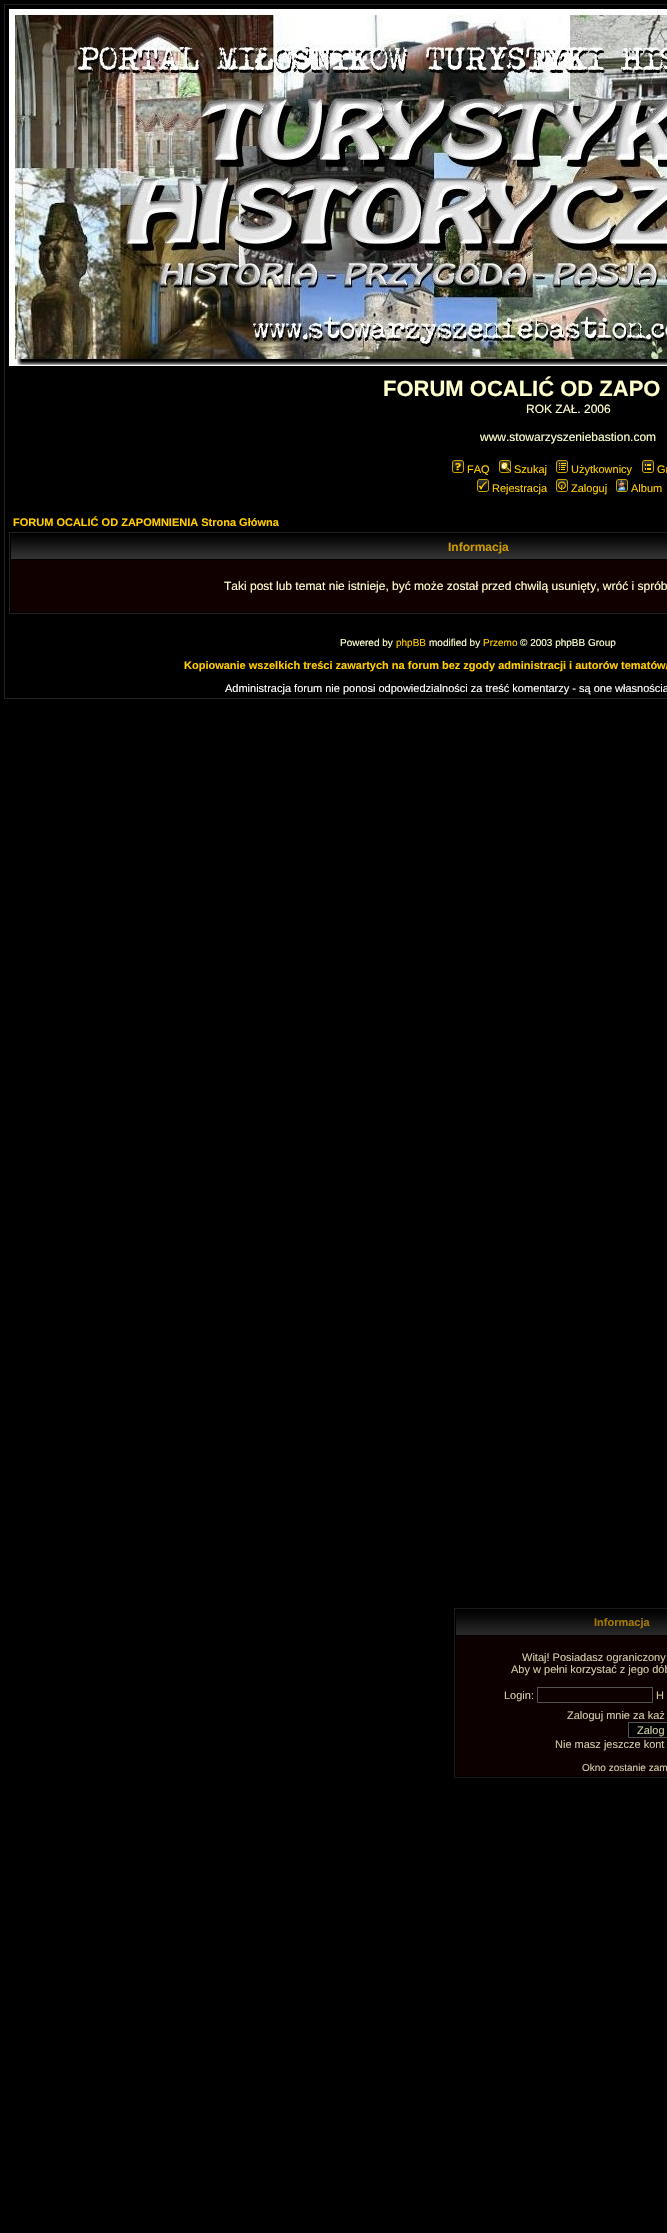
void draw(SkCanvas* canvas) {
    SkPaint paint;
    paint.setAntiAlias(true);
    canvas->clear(0xFF000000);
    paint.setStyle(SkPaint::kStroke_Style);
    paint.setStrokeWidth(1);
    paint.setColor(0xFF212121);
    canvas->drawRect(SkRect::MakeXYWH(4.5f, 4.5f, 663, 694), paint);
    canvas->drawImageRect(SkImages::DeferredFromEncodedData(SkData::MakeFromFileName("img1.png")), SkRect::MakeXYWH(9, 9, 658, 357), SkSamplingOptions());
    paint.setStyle(SkPaint::kFill_Style);
    paint.setColor(0xFF191919);
    canvas->drawRect(SkRect::MakeXYWH(45, 426, 1, 1), paint);
    SkFont font1(fontMgr->matchFamilyStyle("Liberation Sans", SkFontStyle::Bold()), 22);
    font1.setSubpixel(true);
    paint.setColor(0xFFFFFFCC);
    canvas->drawString("FORUM OCALIĆ OD ZAPO", 383, 396, font1, paint);
    SkFont font2(fontMgr->matchFamilyStyle("Liberation Sans", SkFontStyle::Normal()), 12);
    font2.setSubpixel(true);
    canvas->drawString("ROK ZAŁ. 2006", 526, 413, font2, paint);
    canvas->drawString("www.stowarzyszeniebastion.com", 480, 441, font2, paint);
    canvas->drawImageRect(SkImages::DeferredFromEncodedData(SkData::MakeFromFileName("img2.png")), SkRect::MakeXYWH(452, 460, 12, 13), SkSamplingOptions());
    SkFont font3(fontMgr->matchFamilyStyle("Liberation Sans", SkFontStyle::Normal()), 11);
    font3.setSubpixel(true);
    paint.setColor(0xFFFFCC00);
    canvas->drawString("FAQ", 467, 473, font3, paint);
    canvas->drawImageRect(SkImages::DeferredFromEncodedData(SkData::MakeFromFileName("img3.png")), SkRect::MakeXYWH(499, 460, 12, 13), SkSamplingOptions());
    canvas->drawString("Szukaj", 514, 473, font3, paint);
    canvas->drawImageRect(SkImages::DeferredFromEncodedData(SkData::MakeFromFileName("img4.png")), SkRect::MakeXYWH(556, 460, 12, 13), SkSamplingOptions());
    canvas->drawString("Użytkownicy", 571, 473, font3, paint);
    canvas->drawImageRect(SkImages::DeferredFromEncodedData(SkData::MakeFromFileName("img5.png")), SkRect::MakeXYWH(642, 460, 12, 13), SkSamplingOptions());
    canvas->drawString("Gr", 657, 473, font3, paint);
    canvas->drawImageRect(SkImages::DeferredFromEncodedData(SkData::MakeFromFileName("img6.png")), SkRect::MakeXYWH(477, 479, 12, 13), SkSamplingOptions());
    canvas->drawString("Rejestracja", 492, 492, font3, paint);
    canvas->drawImageRect(SkImages::DeferredFromEncodedData(SkData::MakeFromFileName("img7.png")), SkRect::MakeXYWH(556, 479, 12, 13), SkSamplingOptions());
    canvas->drawString("Zaloguj", 571, 492, font3, paint);
    canvas->drawImageRect(SkImages::DeferredFromEncodedData(SkData::MakeFromFileName("img8.png")), SkRect::MakeXYWH(616, 479, 12, 13), SkSamplingOptions());
    canvas->drawString("Album", 631, 492, font3, paint);
    SkFont font4(fontMgr->matchFamilyStyle("Liberation Sans", SkFontStyle::Bold()), 11);
    font4.setSubpixel(true);
    canvas->drawString("FORUM OCALIĆ OD ZAPOMNIENIA Strona Główna", 13, 526, font4, paint);
    paint.setStyle(SkPaint::kStroke_Style);
    paint.setColor(0xFF212121);
    canvas->drawRect(SkRect::MakeXYWH(9.5f, 532.5f, 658, 81), paint);
    canvas->drawImageRect(SkImages::DeferredFromEncodedData(SkData::MakeFromFileName("img9.png")), SkRect::MakeXYWH(11, 534, 656, 25), SkSamplingOptions());
    SkFont font5(fontMgr->matchFamilyStyle("Liberation Sans", SkFontStyle::Bold()), 12);
    font5.setSubpixel(true);
    paint.setStyle(SkPaint::kFill_Style);
    paint.setColor(0xFFCC9900);
    canvas->drawString("Informacja", 448, 551, font5, paint);
    paint.setColor(0xFF100000);
    canvas->drawRect(SkRect::MakeXYWH(11, 560, 656, 52), paint);
    paint.setColor(0xFFFFFFCC);
    canvas->drawString("Taki post lub temat nie istnieje, być może został przed chwilą usunięty, wróć i sprób", 224, 590, font2, paint);
    SkFont font6(fontMgr->matchFamilyStyle("Liberation Sans", SkFontStyle::Normal()), 10);
    font6.setSubpixel(true);
    canvas->drawString("Powered by", 340, 646, font6, paint);
    paint.setColor(0xFFFFCC00);
    canvas->drawString("phpBB", 396, 646, font6, paint);
    paint.setColor(0xFFFFFFCC);
    canvas->drawString("modified by", 429, 646, font6, paint);
    paint.setColor(0xFFFFCC00);
    canvas->drawString("Przemo", 483, 646, font6, paint);
    paint.setColor(0xFFFFFFCC);
    canvas->drawString("© 2003 phpBB Group", 520, 646, font6, paint);
    paint.setColor(0xFFFFCC00);
    canvas->drawString("Kopiowanie wszelkich treści zawartych na forum bez zgody administracji i autorów tematów/", 184, 669, font4, paint);
    paint.setColor(0xFFFFFFFF);
    canvas->drawString("Administracja forum nie ponosi odpowiedzialności za treść komentarzy - są one własnością", 225, 692, font3, paint);
    paint.setStyle(SkPaint::kStroke_Style);
    paint.setColor(0xFF1A1A1A);
    canvas->drawRect(SkRect::MakeXYWH(454.5f, 1608.5f, 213, 169), paint);
    canvas->drawImageRect(SkImages::DeferredFromEncodedData(SkData::MakeFromFileName("img10.png")), SkRect::MakeXYWH(456, 1610, 211, 25), SkSamplingOptions());
    paint.setStyle(SkPaint::kFill_Style);
    paint.setColor(0xFFA37A00);
    canvas->drawString("Informacja", 594, 1626, font4, paint);
    paint.setColor(0xFF0D0000);
    canvas->drawRect(SkRect::MakeXYWH(456, 1636, 211, 140), paint);
    paint.setColor(0xFFCCCCA3);
    canvas->drawString("Witaj! Posiadasz ograniczony", 522, 1661, font3, paint);
    canvas->drawString("Aby w pełni korzystać z jego dób", 511, 1673, font3, paint);
    canvas->drawString("Login:", 504, 1699, font3, paint);
    paint.setStyle(SkPaint::kStroke_Style);
    paint.setColor(0xFF525252);
    canvas->drawRect(SkRect::MakeXYWH(537.5f, 1687.5f, 115, 15), paint);
    paint.setStyle(SkPaint::kFill_Style);
    paint.setColor(0xFFCCCCA3);
    canvas->drawString("H", 656, 1699, font3, paint);
    canvas->drawString("Zaloguj mnie za każ", 567, 1719, font3, paint);
    paint.setColor(0xFF000000);
    canvas->drawRect(SkRect::MakeXYWH(628.5f, 1722.5f, 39, 15), paint);
    paint.setStyle(SkPaint::kStroke_Style);
    paint.setColor(0xFF525252);
    canvas->drawRect(SkRect::MakeXYWH(628.5f, 1722.5f, 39, 15), paint);
    paint.setStyle(SkPaint::kFill_Style);
    paint.setColor(0xFFCCCCA3);
    canvas->drawString("Zalog", 637, 1734, font3, paint);
    canvas->drawString("Nie masz jeszcze kont", 555, 1748, font3, paint);
    canvas->drawString("Okno zostanie zam", 582, 1771, font6, paint);
}
